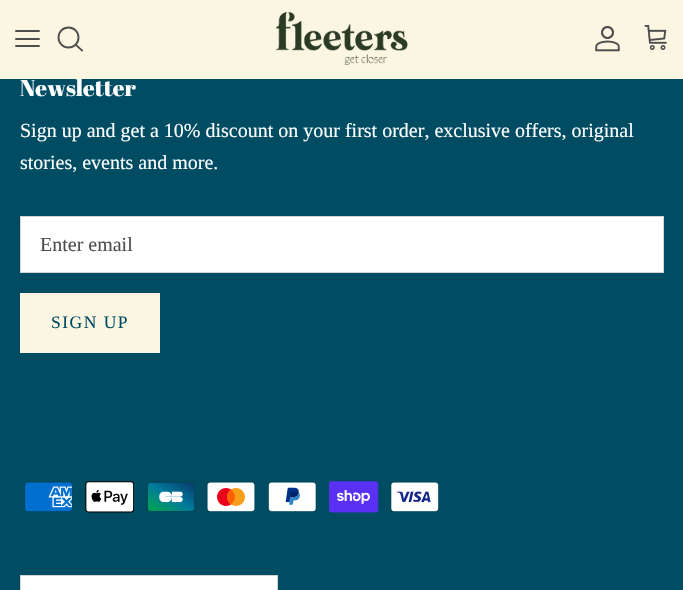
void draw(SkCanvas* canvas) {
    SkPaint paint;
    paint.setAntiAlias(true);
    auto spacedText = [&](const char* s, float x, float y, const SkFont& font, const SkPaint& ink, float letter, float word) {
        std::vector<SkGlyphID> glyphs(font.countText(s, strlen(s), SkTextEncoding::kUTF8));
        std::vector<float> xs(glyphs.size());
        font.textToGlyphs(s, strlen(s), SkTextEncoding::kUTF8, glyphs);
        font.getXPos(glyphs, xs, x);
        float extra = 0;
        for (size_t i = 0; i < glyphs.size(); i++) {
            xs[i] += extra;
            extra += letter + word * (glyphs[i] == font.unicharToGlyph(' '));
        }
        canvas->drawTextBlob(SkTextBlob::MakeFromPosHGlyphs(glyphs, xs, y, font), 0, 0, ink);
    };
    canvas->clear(0xFF004D63);
    SkFont font1(fontMgr->matchFamilyStyle("Abril Fatface", SkFontStyle::Normal()), 22.75f);
    font1.setSubpixel(true);
    paint.setColor(0xFFFFFFFF);
    canvas->drawString("Newsletter", 20, 96, font1, paint);
    paint.setColor(0xFFFBF6E2);
    canvas->drawRect(SkRect::MakeXYWH(0, 0, 683, 79), paint);
    paint.setStyle(SkPaint::kStroke_Style);
    paint.setStrokeWidth(1.9f);
    paint.setStrokeCap(SkPaint::kRound_Cap);
    paint.setStrokeJoin(SkPaint::kRound_Join);
    paint.setColor(0xFF4D4D4D);
    canvas->drawPath(SkPathBuilder().moveTo(16, 39).lineTo(39, 39).moveTo(16, 31).lineTo(39, 31).moveTo(16, 46).lineTo(39, 46).detach(), paint);
    paint.setStrokeCap(SkPaint::kButt_Cap);
    paint.setStrokeJoin(SkPaint::kMiter_Join);
    canvas->drawCircle(68.5f, 37.5f, 10, paint);
    paint.setStrokeCap(SkPaint::kSquare_Cap);
    canvas->drawPath(SkPathBuilder().moveTo(76, 45).lineTo(82, 50.5f).detach(), paint);
    canvas->drawImageRect(SkImages::DeferredFromEncodedData(SkData::MakeFromFileName("img1.png")), SkRect::MakeXYWH(276, 12, 132, 53), SkSamplingOptions());
    canvas->drawImageRect(SkImages::DeferredFromEncodedData(SkData::MakeFromFileName("img2.png")), SkRect::MakeXYWH(595, 26, 25, 26), SkSamplingOptions());
    canvas->drawImageRect(SkImages::DeferredFromEncodedData(SkData::MakeFromFileName("img3.png")), SkRect::MakeXYWH(644, 25, 23, 25), SkSamplingOptions());
    SkFont font2(fontMgr->matchFamilyStyle("Liberation Serif", SkFontStyle::Normal()), 20);
    font2.setSubpixel(true);
    paint.setStyle(SkPaint::kFill_Style);
    paint.setColor(0xFFFFFFFF);
    canvas->drawString("Sign up and get a 10% discount on your first order, exclusive offers, original", 20, 137, font2, paint);
    canvas->drawString("stories, events and more.", 20, 169, font2, paint);
    canvas->drawRect(SkRect::MakeXYWH(20.5f, 216.5f, 643, 56), paint);
    paint.setStyle(SkPaint::kStroke_Style);
    paint.setStrokeWidth(1);
    paint.setStrokeCap(SkPaint::kButt_Cap);
    paint.setColor(0xFFD3D3D3);
    canvas->drawRect(SkRect::MakeXYWH(20.5f, 216.5f, 643, 56), paint);
    paint.setStyle(SkPaint::kFill_Style);
    paint.setColor(0xFF4D4D4D);
    canvas->drawString("Enter email", 40, 251, font2, paint);
    paint.setColor(0xFFFBF6E2);
    canvas->drawRect(SkRect::MakeXYWH(20, 293, 140, 60), paint);
    SkFont font3(fontMgr->matchFamilyStyle("Liberation Serif", SkFontStyle::Normal()), 17.5f);
    font3.setSubpixel(true);
    paint.setColor(0xFF004D63);
    spacedText("SIGN UP", 51, 328, font3, paint, 1.5f, 0);
    canvas->drawImageRect(SkImages::DeferredFromEncodedData(SkData::MakeFromFileName("img4.png")), SkRect::MakeXYWH(24, 481, 49, 31), SkSamplingOptions());
    canvas->drawImageRect(SkImages::DeferredFromEncodedData(SkData::MakeFromFileName("img5.png")), SkRect::MakeXYWH(85, 481, 49, 32), SkSamplingOptions());
    canvas->drawImageRect(SkImages::DeferredFromEncodedData(SkData::MakeFromFileName("img6.png")), SkRect::MakeXYWH(146, 481, 49, 31), SkSamplingOptions());
    canvas->drawImageRect(SkImages::DeferredFromEncodedData(SkData::MakeFromFileName("img7.png")), SkRect::MakeXYWH(206, 481, 50, 31), SkSamplingOptions());
    canvas->drawImageRect(SkImages::DeferredFromEncodedData(SkData::MakeFromFileName("img8.png")), SkRect::MakeXYWH(268, 481, 49, 31), SkSamplingOptions());
    canvas->drawImageRect(SkImages::DeferredFromEncodedData(SkData::MakeFromFileName("img9.png")), SkRect::MakeXYWH(329, 481, 50, 32), SkSamplingOptions());
    canvas->drawImageRect(SkImages::DeferredFromEncodedData(SkData::MakeFromFileName("img10.png")), SkRect::MakeXYWH(390, 481, 49, 31), SkSamplingOptions());
    paint.setColor(0xFFFFFFFF);
    canvas->drawRect(SkRect::MakeXYWH(20.5f, 575.5f, 257, 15), paint);
    paint.setStyle(SkPaint::kStroke_Style);
    paint.setColor(0xFFD3D3D3);
    canvas->drawRect(SkRect::MakeXYWH(20.5f, 575.5f, 257, 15), paint);
}
